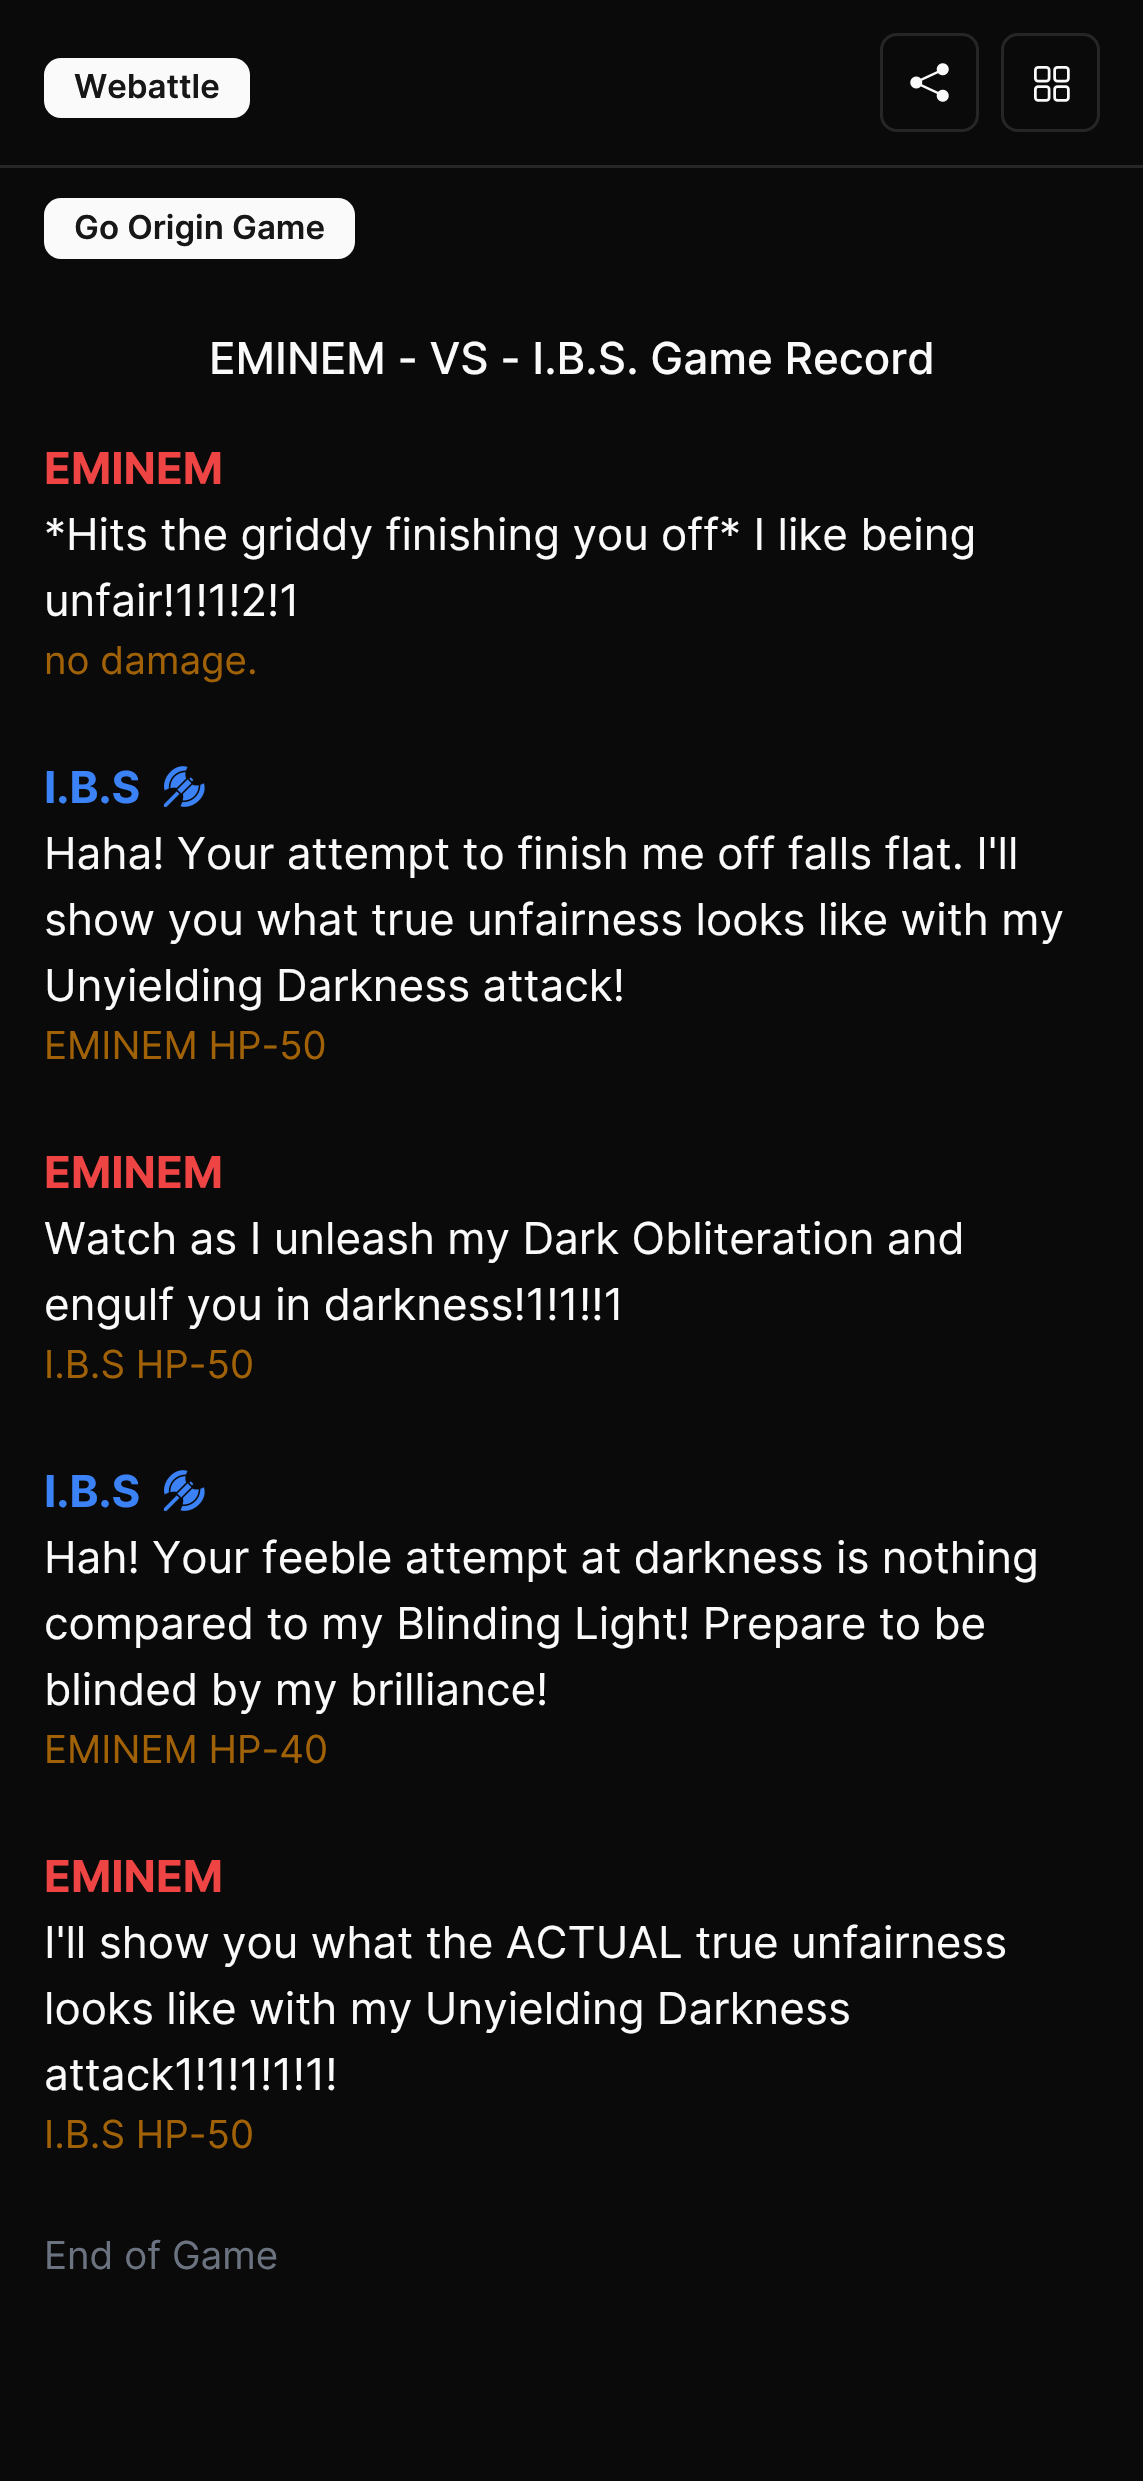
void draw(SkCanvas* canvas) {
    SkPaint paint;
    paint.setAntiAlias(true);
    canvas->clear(0xFF0A0A0A);
    paint.setColor(0xFF262626);
    canvas->drawRect(SkRect::MakeXYWH(0, 165, 1143, 3), paint);
    paint.setColor(0xFFFAFAFA);
    canvas->drawRoundRect(SkRect::MakeXYWH(44, 58, 206, 60), 17, 17, paint);
    SkFont font1(fontMgr->matchFamilyStyle("Inter", SkFontStyle(600, SkFontStyle::kNormal_Width, SkFontStyle::kUpright_Slant)), 33);
    font1.setSubpixel(true);
    paint.setColor(0xFF171717);
    canvas->drawString("Webattle", 74, 98, font1, paint);
    paint.setStyle(SkPaint::kStroke_Style);
    paint.setStrokeWidth(3);
    paint.setColor(0xFF262626);
    canvas->drawRoundRect(SkRect::MakeXYWH(881.5f, 34.5f, 96, 96), 15.5f, 15.5f, paint);
    canvas->drawImageRect(SkImages::DeferredFromEncodedData(SkData::MakeFromFileName("img1.png")), SkRect::MakeXYWH(910, 63, 39, 39), SkSamplingOptions());
    canvas->drawRoundRect(SkRect::MakeXYWH(1002.5f, 34.5f, 96, 96), 15.5f, 15.5f, paint);
    canvas->drawImageRect(SkImages::DeferredFromEncodedData(SkData::MakeFromFileName("img2.png")), SkRect::MakeXYWH(1034, 66, 36, 36), SkSamplingOptions());
    paint.setStyle(SkPaint::kFill_Style);
    paint.setColor(0xFFFAFAFA);
    canvas->drawRoundRect(SkRect::MakeXYWH(44, 198, 311, 61), 17, 17, paint);
    paint.setColor(0xFF171717);
    canvas->drawString("Go Origin Game", 74, 239, font1, paint);
    SkFont font2(fontMgr->matchFamilyStyle("Inter", SkFontStyle(500, SkFontStyle::kNormal_Width, SkFontStyle::kUpright_Slant)), 44);
    font2.setSubpixel(true);
    paint.setColor(0xFFFAFAFA);
    canvas->drawString("EMINEM - VS - I.B.S. Game Record", 209, 374, font2, paint);
    SkFont font3(fontMgr->matchFamilyStyle("Inter", SkFontStyle::Bold()), 44);
    font3.setSubpixel(true);
    paint.setColor(0xFFEF4444);
    canvas->drawString("EMINEM", 44, 484, font3, paint);
    SkFont font4(fontMgr->matchFamilyStyle("Inter", SkFontStyle::Normal()), 44);
    font4.setSubpixel(true);
    paint.setColor(0xFFFAFAFA);
    canvas->drawString("*Hits the griddy finishing you off* I like being", 44, 550, font4, paint);
    canvas->drawString("unfair!1!1!2!1", 44, 616, font4, paint);
    SkFont font5(fontMgr->matchFamilyStyle("Inter", SkFontStyle::Normal()), 38.5f);
    font5.setSubpixel(true);
    paint.setColor(0xFFA16207);
    canvas->drawString("no damage.", 44, 674, font5, paint);
    paint.setColor(0xFF3B82F6);
    canvas->drawString("I.B.S", 44, 803, font3, paint);
    canvas->drawImageRect(SkImages::DeferredFromEncodedData(SkData::MakeFromFileName("img3.png")), SkRect::MakeXYWH(163, 766, 42, 41), SkSamplingOptions());
    paint.setColor(0xFFFAFAFA);
    canvas->drawString("Haha! Your attempt to finish me off falls flat. I'll", 44, 869, font4, paint);
    canvas->drawString("show you what true unfairness looks like with my", 44, 935, font4, paint);
    canvas->drawString("Unyielding Darkness attack!", 44, 1001, font4, paint);
    paint.setColor(0xFFA16207);
    canvas->drawString("EMINEM HP-50", 44, 1059, font5, paint);
    paint.setColor(0xFFEF4444);
    canvas->drawString("EMINEM", 44, 1188, font3, paint);
    paint.setColor(0xFFFAFAFA);
    canvas->drawString("Watch as I unleash my Dark Obliteration and", 44, 1254, font4, paint);
    canvas->drawString("engulf you in darkness!1!1!!1", 44, 1320, font4, paint);
    paint.setColor(0xFFA16207);
    canvas->drawString("I.B.S HP-50", 44, 1378, font5, paint);
    paint.setColor(0xFF3B82F6);
    canvas->drawString("I.B.S", 44, 1507, font3, paint);
    canvas->drawImageRect(SkImages::DeferredFromEncodedData(SkData::MakeFromFileName("img3.png")), SkRect::MakeXYWH(163, 1470, 42, 41), SkSamplingOptions());
    paint.setColor(0xFFFAFAFA);
    canvas->drawString("Hah! Your feeble attempt at darkness is nothing", 44, 1573, font4, paint);
    canvas->drawString("compared to my Blinding Light! Prepare to be", 44, 1639, font4, paint);
    canvas->drawString("blinded by my brilliance!", 44, 1705, font4, paint);
    paint.setColor(0xFFA16207);
    canvas->drawString("EMINEM HP-40", 44, 1763, font5, paint);
    paint.setColor(0xFFEF4444);
    canvas->drawString("EMINEM", 44, 1892, font3, paint);
    paint.setColor(0xFFFAFAFA);
    canvas->drawString("I'll show you what the ACTUAL true unfairness", 44, 1958, font4, paint);
    canvas->drawString("looks like with my Unyielding Darkness", 44, 2024, font4, paint);
    canvas->drawString("attack1!1!1!1!1!", 44, 2090, font4, paint);
    paint.setColor(0xFFA16207);
    canvas->drawString("I.B.S HP-50", 44, 2148, font5, paint);
    paint.setColor(0xFF6B7280);
    canvas->drawString("End of Game", 44, 2269, font5, paint);
}
